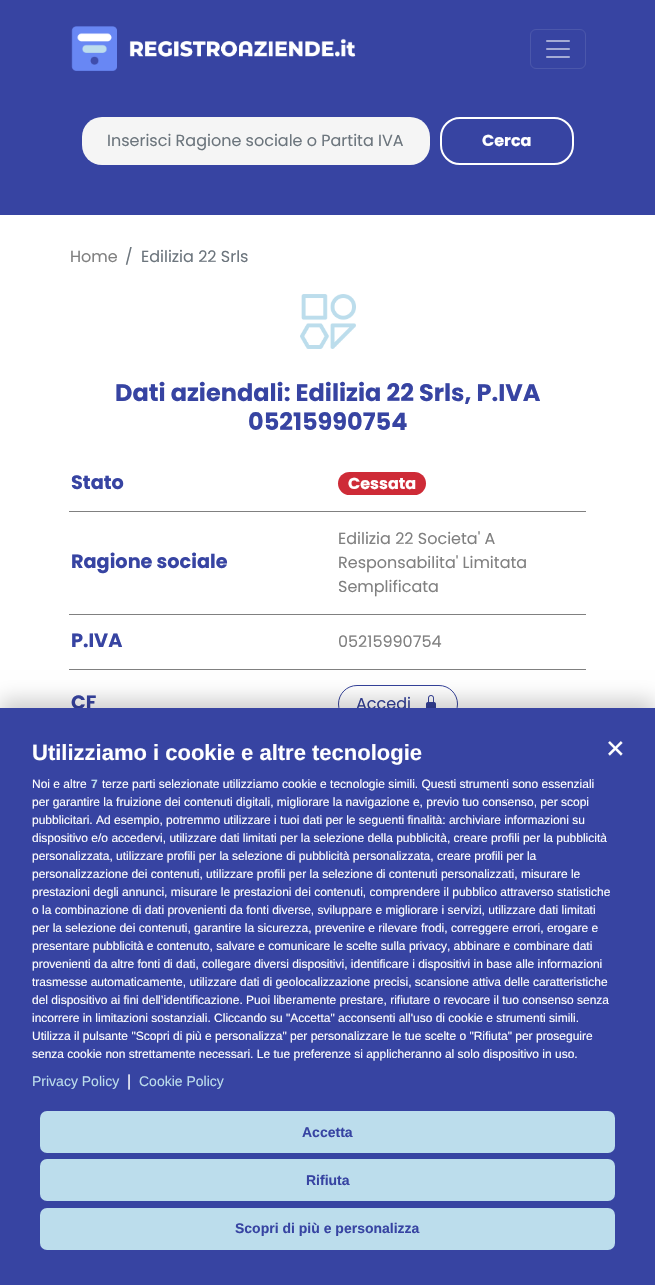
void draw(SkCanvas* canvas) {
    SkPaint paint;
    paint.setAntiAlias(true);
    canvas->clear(0xFFFFFFFF);
    paint.setColor(0xFF3744A2);
    canvas->drawRect(SkRect::MakeXYWH(0, 0, 655, 215), paint);
    canvas->drawImageRect(SkImages::DeferredFromEncodedData(SkData::MakeFromFileName("img1.png")), SkRect::MakeXYWH(71, 26, 285, 45), SkSamplingOptions());
    paint.setStyle(SkPaint::kStroke_Style);
    paint.setStrokeWidth(1);
    paint.setColor(0xFF4B57AB);
    canvas->drawRoundRect(SkRect::MakeXYWH(530.5f, 29.5f, 55, 39), 5.5f, 5.5f, paint);
    canvas->drawImageRect(SkImages::DeferredFromEncodedData(SkData::MakeFromFileName("img2.png")), SkRect::MakeXYWH(546, 40, 24, 18), SkSamplingOptions());
    paint.setStyle(SkPaint::kFill_Style);
    paint.setColor(0xFFF5F5F5);
    canvas->drawRoundRect(SkRect::MakeXYWH(82, 117, 348, 48), 20, 20, paint);
    SkFont font1(fontMgr->matchFamilyStyle("Poppins", SkFontStyle::Normal()), 16);
    font1.setSubpixel(true);
    paint.setColor(0xFF6C757D);
    canvas->drawString("Inserisci Ragione sociale o Partita IVA", 107, 146, font1, paint);
    paint.setStyle(SkPaint::kStroke_Style);
    paint.setStrokeWidth(2);
    paint.setColor(0xFFFFFFFF);
    canvas->drawRoundRect(SkRect::MakeXYWH(441, 118, 132, 46), 19, 19, paint);
    SkFont font2(fontMgr->matchFamilyStyle("Poppins", SkFontStyle::Bold()), 16);
    font2.setSubpixel(true);
    paint.setStyle(SkPaint::kFill_Style);
    canvas->drawString("Cerca", 482, 146, font2, paint);
    paint.setColor(0xFF808080);
    canvas->drawString("Home", 70, 262, font1, paint);
    paint.setColor(0xFF6C757D);
    canvas->drawString("/", 125, 262, font1, paint);
    canvas->drawString("Edilizia 22 Srls", 141, 262, font1, paint);
    canvas->drawImageRect(SkImages::DeferredFromEncodedData(SkData::MakeFromFileName("img3.png")), SkRect::MakeXYWH(300, 294, 56, 55), SkSamplingOptions());
    SkFont font3(fontMgr->matchFamilyStyle("Poppins", SkFontStyle::Bold()), 24);
    font3.setSubpixel(true);
    paint.setColor(0xFF3744A2);
    canvas->drawString("Dati aziendali: Edilizia 22 Srls, P.IVA", 115, 401, font3, paint);
    canvas->drawString("05215990754", 248, 430, font3, paint);
    paint.setColor(0xFF808080);
    canvas->drawRect(SkRect::MakeXYWH(69, 511, 517, 1), paint);
    SkFont font4(fontMgr->matchFamilyStyle("Poppins", SkFontStyle::Bold()), 19.25f);
    font4.setSubpixel(true);
    paint.setColor(0xFF3744A2);
    canvas->drawString("Stato", 71, 489, font4, paint);
    paint.setColor(0xFFCE2B37);
    canvas->drawRoundRect(SkRect::MakeXYWH(338, 472, 88, 23), 11.5f, 11.5f, paint);
    paint.setColor(0xFFFFFFFF);
    canvas->drawString("Cessata", 348, 489, font2, paint);
    paint.setColor(0xFF808080);
    canvas->drawRect(SkRect::MakeXYWH(69, 614, 517, 1), paint);
    paint.setColor(0xFF3744A2);
    canvas->drawString("Ragione sociale", 71, 568, font4, paint);
    paint.setColor(0xFF808080);
    canvas->drawString("Edilizia 22 Societa' A", 338, 544, font1, paint);
    canvas->drawString("Responsabilita' Limitata", 338, 568, font1, paint);
    canvas->drawString("Semplificata", 338, 592, font1, paint);
    canvas->drawRect(SkRect::MakeXYWH(69, 669, 517, 1), paint);
    paint.setColor(0xFF3744A2);
    canvas->drawString("P.IVA", 71, 647, font4, paint);
    paint.setColor(0xFF808080);
    canvas->drawString("05215990754", 338, 647, font1, paint);
    paint.setColor(0xFF3744A2);
    canvas->drawString("CF", 71, 709, font4, paint);
    paint.setStyle(SkPaint::kStroke_Style);
    paint.setStrokeWidth(1);
    paint.setColor(0xFF344199);
    canvas->drawRoundRect(SkRect::MakeXYWH(338.5f, 685.5f, 119, 37), 18.5f, 18.5f, paint);
    paint.setStyle(SkPaint::kFill_Style);
    canvas->drawString("Accedi", 356, 709, font1, paint);
    canvas->drawImageRect(SkImages::DeferredFromEncodedData(SkData::MakeFromFileName("img4.png")), SkRect::MakeXYWH(426, 695, 10, 13), SkSamplingOptions());
    paint.setColor(0x33000000);
    paint.setMaskFilter(SkMaskFilter::MakeBlur(kNormal_SkBlurStyle, 10));
    canvas->drawRect(SkRect::MakeXYWH(0, 700, 655, 577), paint);
    paint.setMaskFilter(nullptr);
    paint.setColor(0xFF3744A2);
    canvas->drawRect(SkRect::MakeXYWH(0, 708, 655, 577), paint);
    SkFont font5(fontMgr->matchFamilyStyle("Liberation Sans", SkFontStyle::Bold()), 22);
    font5.setSubpixel(true);
    paint.setColor(0xFFFFFFFF);
    canvas->drawString("Utilizziamo i cookie e altre tecnologie", 32, 760, font5, paint);
    SkFont font6(fontMgr->matchFamilyStyle("Liberation Sans", SkFontStyle::Normal()), 32);
    font6.setSubpixel(true);
    canvas->drawString("×", 606, 759, font6, paint);
    SkFont font7(fontMgr->matchFamilyStyle("Liberation Sans", SkFontStyle::Normal()), 12);
    font7.setSubpixel(true);
    canvas->drawString("Noi e altre", 32, 788, font7, paint);
    SkFont font8(fontMgr->matchFamilyStyle("Liberation Sans", SkFontStyle::Bold()), 12);
    font8.setSubpixel(true);
    paint.setColor(0xFFBCDDEC);
    canvas->drawString("7", 91, 788, font8, paint);
    paint.setColor(0xFFFFFFFF);
    canvas->drawString("terze parti selezionate utilizziamo cookie e tecnologie simili. Questi strumenti sono essenziali", 102, 788, font7, paint);
    canvas->drawString("per garantire la fruizione dei contenuti digitali, migliorare la navigazione e, previo tuo consenso, per scopi", 32, 806, font7, paint);
    canvas->drawString("pubblicitari. Ad esempio, potremmo utilizzare i tuoi dati per le seguenti finalità: archiviare informazioni su", 32, 824, font7, paint);
    canvas->drawString("dispositivo e/o accedervi, utilizzare dati limitati per la selezione della pubblicità, creare profili per la pubblicità", 32, 842, font7, paint);
    canvas->drawString("personalizzata, utilizzare profili per la selezione di pubblicità personalizzata, creare profili per la", 32, 860, font7, paint);
    canvas->drawString("personalizzazione dei contenuti, utilizzare profili per la selezione di contenuti personalizzati, misurare le", 32, 878, font7, paint);
    canvas->drawString("prestazioni degli annunci, misurare le prestazioni dei contenuti, comprendere il pubblico attraverso statistiche", 32, 896, font7, paint);
    canvas->drawString("o la combinazione di dati provenienti da fonti diverse, sviluppare e migliorare i servizi, utilizzare dati limitati", 32, 914, font7, paint);
    canvas->drawString("per la selezione dei contenuti, garantire la sicurezza, prevenire e rilevare frodi, correggere errori, erogare e", 32, 932, font7, paint);
    canvas->drawString("presentare pubblicità e contenuto, salvare e comunicare le scelte sulla privacy, abbinare e combinare dati", 32, 950, font7, paint);
    canvas->drawString("provenienti da altre fonti di dati, collegare diversi dispositivi, identificare i dispositivi in base alle informazioni", 32, 968, font7, paint);
    canvas->drawString("trasmesse automaticamente, utilizzare dati di geolocalizzazione precisi, scansione attiva delle caratteristiche", 32, 986, font7, paint);
    canvas->drawString("del dispositivo ai fini dell’identificazione. Puoi liberamente prestare, rifiutare o revocare il tuo consenso senza", 32, 1004, font7, paint);
    canvas->drawString("incorrere in limitazioni sostanziali. Cliccando su \"Accetta\" acconsenti all'uso di cookie e strumenti simili.", 32, 1022, font7, paint);
    canvas->drawString("Utilizza il pulsante \"Scopri di più e personalizza\" per personalizzare le tue scelte o \"Rifiuta\" per proseguire", 32, 1040, font7, paint);
    canvas->drawString("senza cookie non strettamente necessari. Le tue preferenze si applicheranno al solo dispositivo in uso.", 32, 1058, font7, paint);
    SkFont font9(fontMgr->matchFamilyStyle("Liberation Sans", SkFontStyle::Normal()), 14);
    font9.setSubpixel(true);
    paint.setColor(0xFFBCDDEC);
    canvas->drawString("Privacy Policy", 32, 1086, font9, paint);
    SkFont font10(fontMgr->matchFamilyStyle("Liberation Sans", SkFontStyle::Normal()), 16);
    font10.setSubpixel(true);
    paint.setColor(0xFFFFFFFF);
    canvas->drawString("|", 127, 1086, font10, paint);
    paint.setColor(0xFFBCDDEC);
    canvas->drawString("Cookie Policy", 139, 1086, font9, paint);
    canvas->drawRoundRect(SkRect::MakeXYWH(40, 1111, 575, 42), 7, 7, paint);
    SkFont font11(fontMgr->matchFamilyStyle("Liberation Sans", SkFontStyle::Bold()), 14);
    font11.setSubpixel(true);
    paint.setColor(0xFF3744A2);
    canvas->drawString("Accetta", 302, 1137, font11, paint);
    paint.setColor(0xFFBCDDEC);
    canvas->drawRoundRect(SkRect::MakeXYWH(40, 1159, 575, 42), 7, 7, paint);
    paint.setColor(0xFF3744A2);
    canvas->drawString("Rifiuta", 306, 1185, font11, paint);
    paint.setColor(0xFFBCDDEC);
    canvas->drawRoundRect(SkRect::MakeXYWH(40, 1208, 575, 42), 7, 7, paint);
    paint.setColor(0xFF3744A2);
    canvas->drawString("Scopri di più e personalizza", 235, 1233, font11, paint);
}
